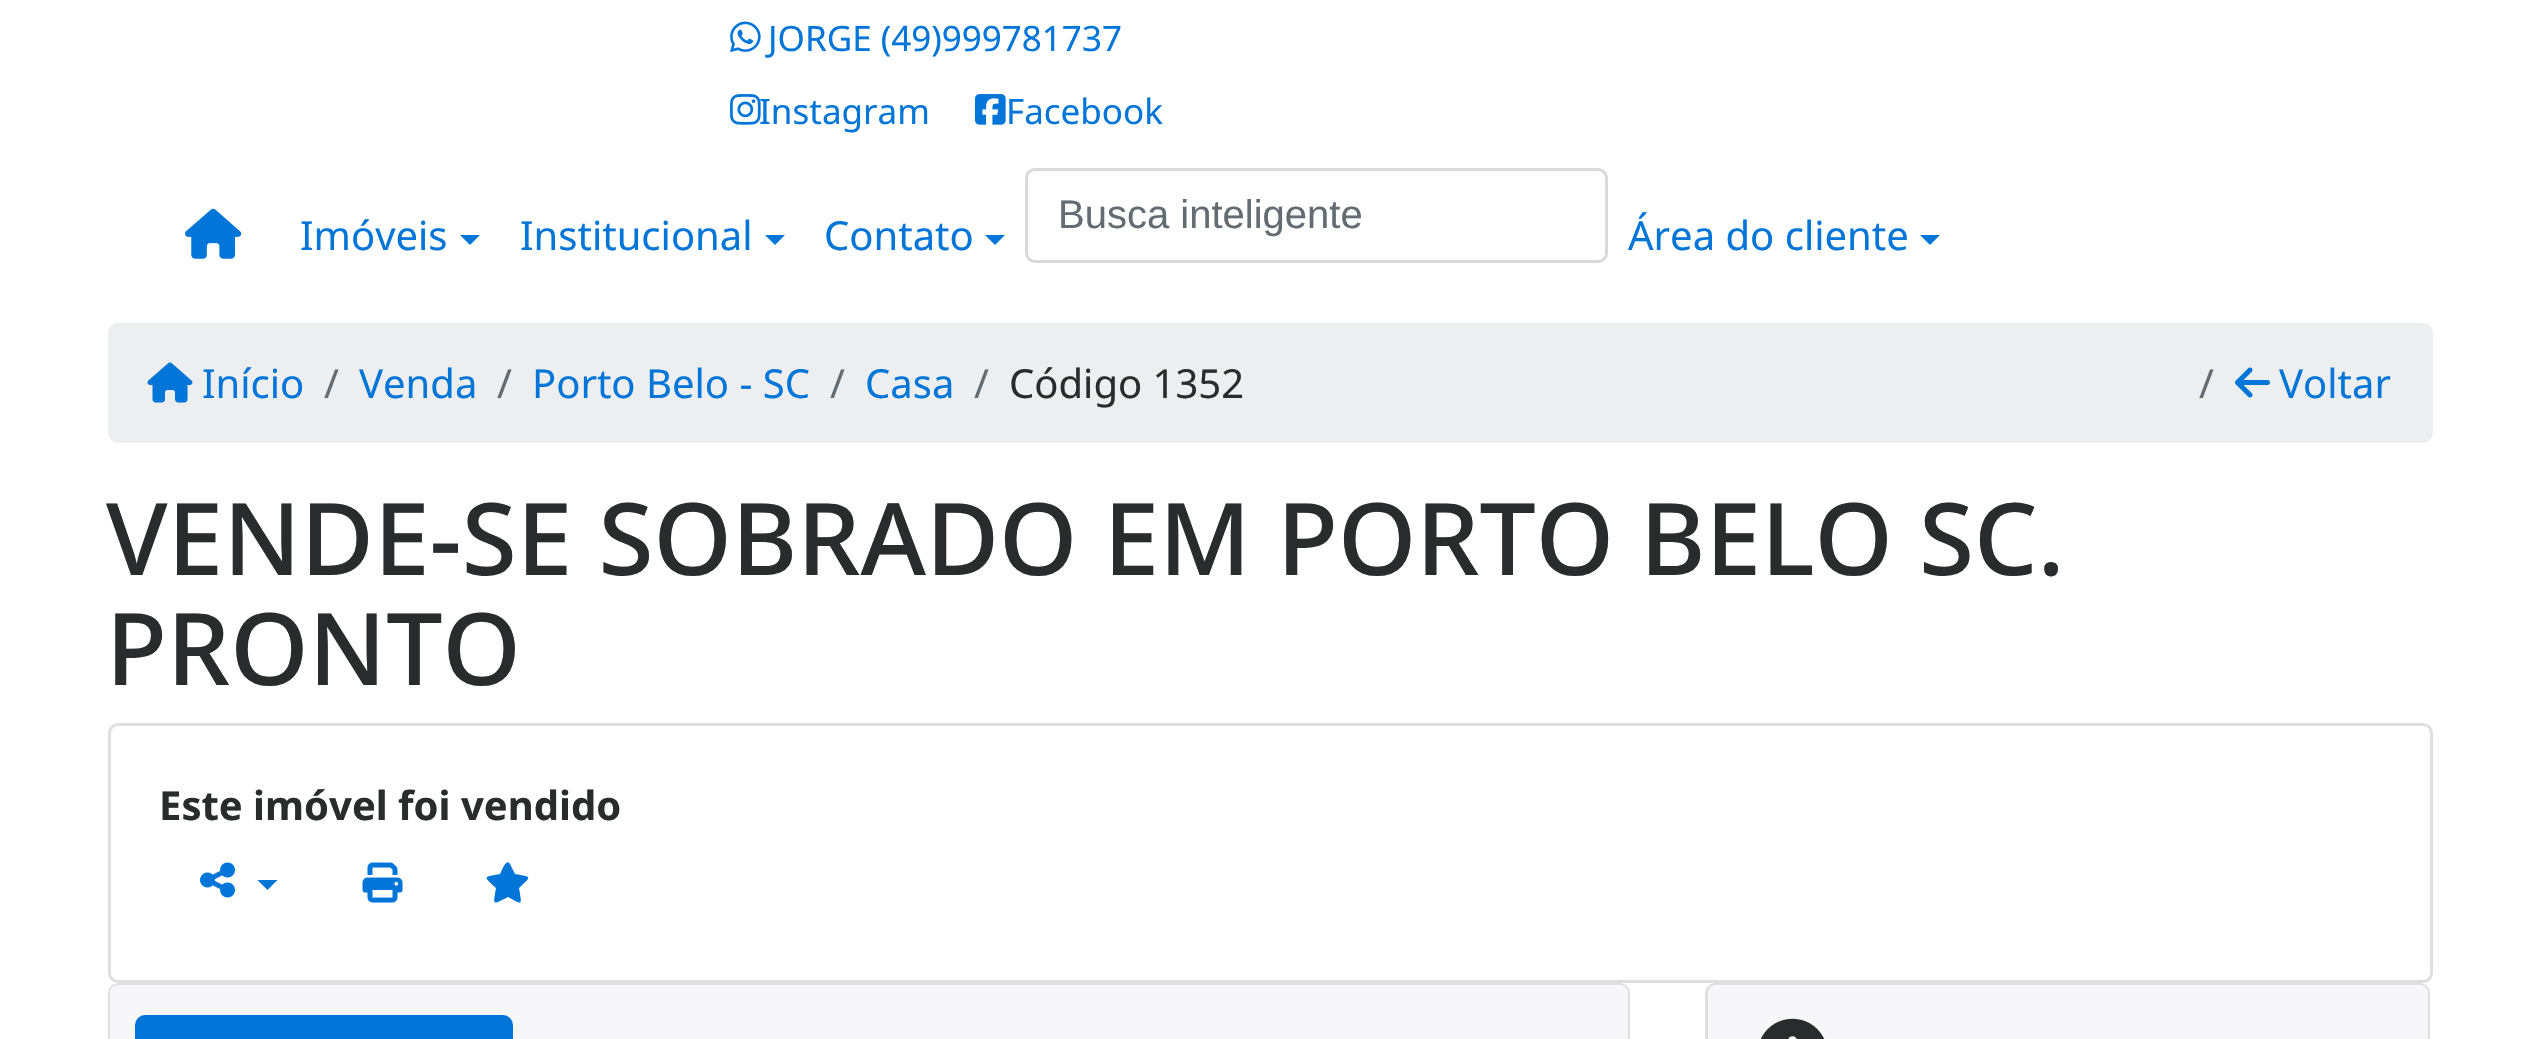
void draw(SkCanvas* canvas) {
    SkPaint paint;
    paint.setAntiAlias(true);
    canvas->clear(0xFFFFFFFF);
    canvas->drawImageRect(SkImages::DeferredFromEncodedData(SkData::MakeFromFileName("img1.png")), SkRect::MakeXYWH(730, 21, 31, 32), SkSamplingOptions());
    SkFont font1(fontMgr->matchFamilyStyle("Noto Sans", SkFontStyle::Normal()), 35);
    font1.setSubpixel(true);
    paint.setColor(0xFF0275D8);
    canvas->drawString("JORGE (49)999781737", 768, 51, font1, paint);
    canvas->drawImageRect(SkImages::DeferredFromEncodedData(SkData::MakeFromFileName("img2.png")), SkRect::MakeXYWH(730, 94, 31, 31), SkSamplingOptions());
    canvas->drawString("Instagram", 759, 124, font1, paint);
    canvas->drawImageRect(SkImages::DeferredFromEncodedData(SkData::MakeFromFileName("img3.png")), SkRect::MakeXYWH(975, 94, 31, 31), SkSamplingOptions());
    canvas->drawString("Facebook", 1006, 124, font1, paint);
    canvas->drawImageRect(SkImages::DeferredFromEncodedData(SkData::MakeFromFileName("img4.png")), SkRect::MakeXYWH(185, 208, 57, 51), SkSamplingOptions());
    SkFont font2(fontMgr->matchFamilyStyle("Noto Sans", SkFontStyle::Normal()), 40);
    font2.setSubpixel(true);
    canvas->drawString("Imóveis", 300, 250, font2, paint);
    canvas->drawPath(SkPathBuilder().moveTo(460, 235).lineTo(480, 235).lineTo(470, 245).close().detach(), paint);
    canvas->drawString("Institucional", 520, 250, font2, paint);
    canvas->drawPath(SkPathBuilder().moveTo(765, 235).lineTo(785, 235).lineTo(775, 245).close().detach(), paint);
    canvas->drawString("Contato", 824, 250, font2, paint);
    canvas->drawPath(SkPathBuilder().moveTo(985, 235).lineTo(1005, 235).lineTo(995, 245).close().detach(), paint);
    paint.setStyle(SkPaint::kStroke_Style);
    paint.setStrokeWidth(3);
    paint.setColor(0xFFD9D9D9);
    canvas->drawRoundRect(SkRect::MakeXYWH(1026.5f, 169.5f, 580, 92), 8.5f, 8.5f, paint);
    SkFont font3(fontMgr->matchFamilyStyle("Liberation Sans", SkFontStyle::Normal()), 40);
    font3.setSubpixel(true);
    paint.setStyle(SkPaint::kFill_Style);
    paint.setColor(0xFF636C72);
    canvas->drawString("Busca inteligente", 1058, 228, font3, paint);
    paint.setColor(0xFF0275D8);
    canvas->drawString("Área do cliente", 1628, 250, font2, paint);
    canvas->drawPath(SkPathBuilder().moveTo(1920, 235).lineTo(1940, 235).lineTo(1930, 245).close().detach(), paint);
    paint.setColor(0xFFECEEEF);
    canvas->drawRoundRect(SkRect::MakeXYWH(108, 323, 2325, 120), 10, 10, paint);
    canvas->drawImageRect(SkImages::DeferredFromEncodedData(SkData::MakeFromFileName("img5.png")), SkRect::MakeXYWH(147, 362, 46, 41), SkSamplingOptions());
    paint.setColor(0xFF0275D8);
    canvas->drawString("Início", 202, 398, font2, paint);
    paint.setColor(0xFF636C72);
    canvas->drawString("/", 324, 398, font2, paint);
    paint.setColor(0xFF0275D8);
    canvas->drawString("Venda", 359, 398, font2, paint);
    paint.setColor(0xFF636C72);
    canvas->drawString("/", 497, 398, font2, paint);
    paint.setColor(0xFF0275D8);
    canvas->drawString("Porto Belo - SC", 532, 398, font2, paint);
    paint.setColor(0xFF636C72);
    canvas->drawString("/", 830, 398, font2, paint);
    paint.setColor(0xFF0275D8);
    canvas->drawString("Casa", 865, 398, font2, paint);
    paint.setColor(0xFF636C72);
    canvas->drawString("/", 974, 398, font2, paint);
    paint.setColor(0xFF292B2C);
    canvas->drawString("Código 1352", 1009, 398, font2, paint);
    paint.setColor(0xFF636C72);
    canvas->drawString("/", 2199, 398, font2, paint);
    canvas->drawImageRect(SkImages::DeferredFromEncodedData(SkData::MakeFromFileName("img6.png")), SkRect::MakeXYWH(2235, 367, 35, 31), SkSamplingOptions());
    paint.setColor(0xFF0275D8);
    canvas->drawString("Voltar", 2279, 398, font2, paint);
    SkFont font4(fontMgr->matchFamilyStyle("Noto Sans", SkFontStyle(500, SkFontStyle::kNormal_Width, SkFontStyle::kUpright_Slant)), 100);
    font4.setSubpixel(true);
    paint.setColor(0xFF292B2C);
    canvas->drawString("VENDE-SE SOBRADO EM PORTO BELO SC.", 106, 575, font4, paint);
    canvas->drawString("PRONTO", 106, 685, font4, paint);
    paint.setStyle(SkPaint::kStroke_Style);
    paint.setColor(0xFFDFDFDF);
    canvas->drawRoundRect(SkRect::MakeXYWH(109.5f, 724.5f, 2322, 257), 8.5f, 8.5f, paint);
    SkFont font5(fontMgr->matchFamilyStyle("Noto Sans", SkFontStyle::Bold()), 40);
    font5.setSubpixel(true);
    paint.setStyle(SkPaint::kFill_Style);
    paint.setColor(0xFF292B2C);
    canvas->drawString("Este imóvel foi vendido", 159, 820, font5, paint);
    canvas->drawImageRect(SkImages::DeferredFromEncodedData(SkData::MakeFromFileName("img7.png")), SkRect::MakeXYWH(200, 862, 35, 36), SkSamplingOptions());
    paint.setColor(0xFF0275D8);
    canvas->drawPath(SkPathBuilder().moveTo(257.5f, 880).lineTo(277.5f, 880).lineTo(267.5f, 890).close().detach(), paint);
    canvas->drawImageRect(SkImages::DeferredFromEncodedData(SkData::MakeFromFileName("img8.png")), SkRect::MakeXYWH(362, 862, 41, 41), SkSamplingOptions());
    canvas->drawPath(SkPathBuilder().moveTo(510, 864).cubicTo(506, 857, 501, 873, 500, 874).cubicTo(483, 877, 483, 876, 496, 888).cubicTo(493, 906, 492, 905, 508, 897).cubicTo(523, 905, 522, 906, 519, 888).cubicTo(532, 876, 532, 877, 515, 874).close().detach(), paint);
    paint.setStyle(SkPaint::kStroke_Style);
    paint.setColor(0xFFDFDFDF);
    canvas->drawRoundRect(SkRect::MakeXYWH(109.5f, 984.5f, 1519, 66), 8.5f, 8.5f, paint);
    paint.setStyle(SkPaint::kFill_Style);
    paint.setColor(0xFFF7F7F9);
    canvas->drawPath(SkPathBuilder().moveTo(118, 985).lineTo(1620, 985).cubicTo(1624.5f, 985, 1628, 988.5f, 1628, 993).lineTo(1628, 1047).lineTo(110, 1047).lineTo(110, 993).cubicTo(110, 988.5f, 113.5f, 985, 118, 985).close().detach(), paint);
    paint.setColor(0xFF0275D8);
    canvas->drawRoundRect(SkRect::MakeXYWH(135, 1015, 378, 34), 10, 10, paint);
    paint.setStyle(SkPaint::kStroke_Style);
    paint.setColor(0xFFDFDFDF);
    canvas->drawRoundRect(SkRect::MakeXYWH(1706.5f, 984.5f, 722, 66), 8.5f, 8.5f, paint);
    paint.setStyle(SkPaint::kFill_Style);
    paint.setColor(0xFFF7F7F9);
    canvas->drawPath(SkPathBuilder().moveTo(1716, 985).lineTo(2420, 985).cubicTo(2424.5f, 985, 2428, 988.5f, 2428, 993).lineTo(2428, 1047).lineTo(1708, 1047).lineTo(1708, 993).cubicTo(1708, 988.5f, 1711.5f, 985, 1716, 985).close().detach(), paint);
    canvas->drawImageRect(SkImages::DeferredFromEncodedData(SkData::MakeFromFileName("img9.png")), SkRect::MakeXYWH(1760, 1018, 65, 21), SkSamplingOptions());
}
